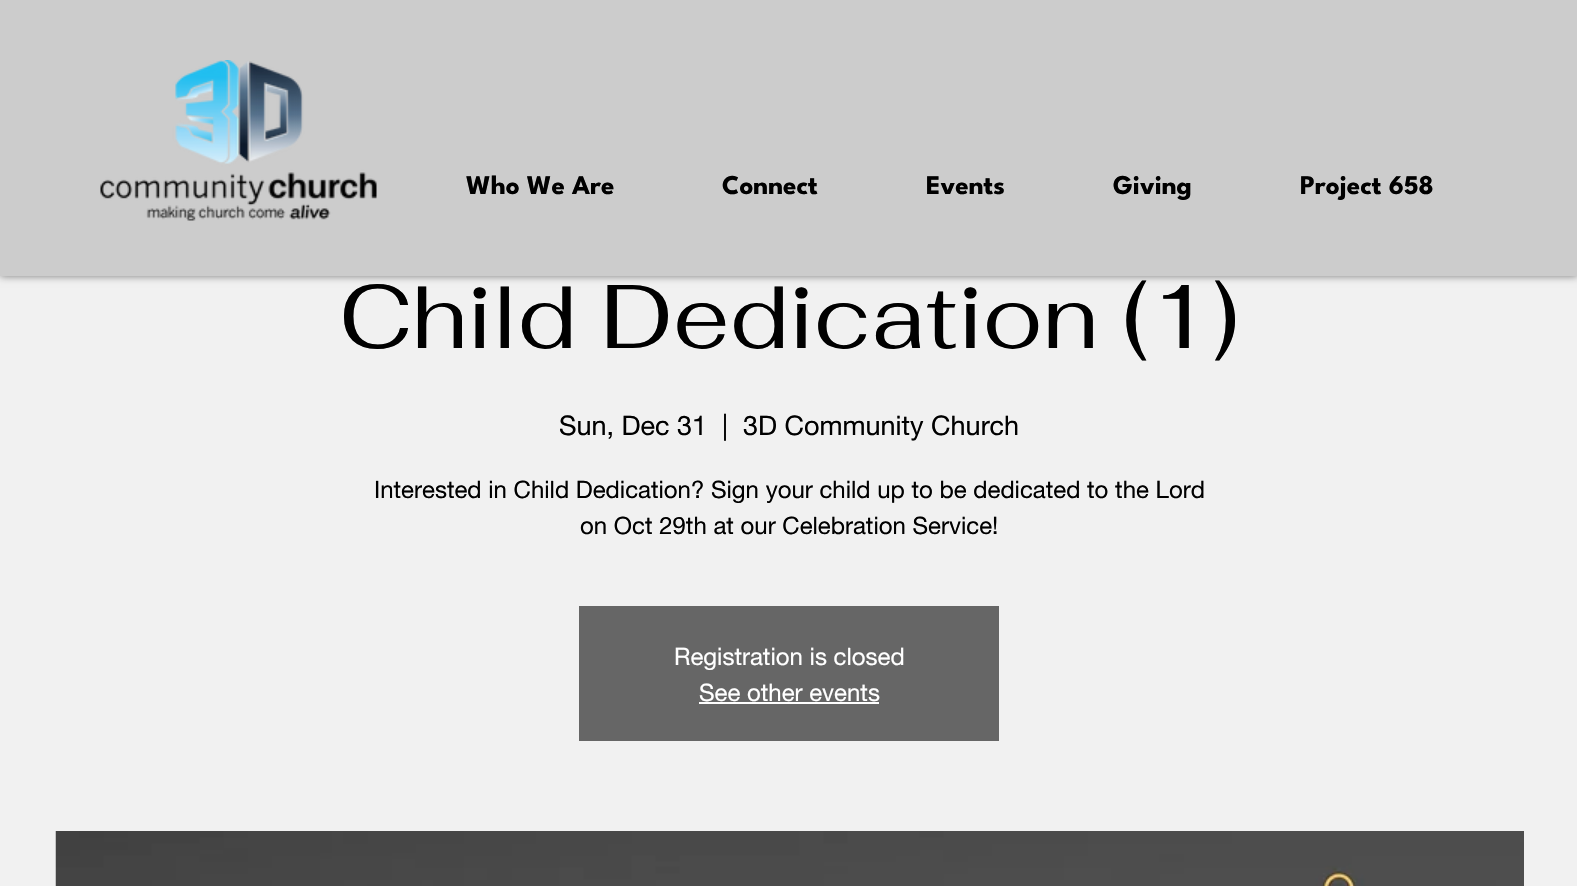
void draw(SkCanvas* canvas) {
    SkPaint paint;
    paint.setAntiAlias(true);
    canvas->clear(0xFFF1F1F1);
    paint.setColor(0x80000000);
    paint.setMaskFilter(SkMaskFilter::MakeBlur(kNormal_SkBlurStyle, 4));
    canvas->drawRect(SkRect::MakeXYWH(0, 0, 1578, 276), paint);
    paint.setMaskFilter(nullptr);
    paint.setColor(0xFFCCCCCC);
    canvas->drawRect(SkRect::MakeXYWH(0, 0, 1577, 276), paint);
    canvas->drawImageRect(SkImages::DeferredFromEncodedData(SkData::MakeFromFileName("img1.png")), SkRect::MakeXYWH(100, 60, 277, 161), SkSamplingOptions());
    SkFont font1(fontMgr->matchFamilyStyle("League Spartan", SkFontStyle::Bold()), 27);
    font1.setSubpixel(true);
    paint.setColor(0xFF000000);
    canvas->drawString("Who We Are", 466, 194, font1, paint);
    canvas->drawString("Connect", 722, 194, font1, paint);
    canvas->drawString("Events", 926, 194, font1, paint);
    canvas->drawString("Giving", 1113, 194, font1, paint);
    canvas->drawString("Project 658", 1300, 194, font1, paint);
    SkFont font2(fontMgr->matchFamilyStyle("Fahkwang", SkFontStyle::Normal()), 90);
    font2.setSubpixel(true);
    canvas->drawString("Child Dedication (1)", 339, 348, font2, paint);
    SkFont font3(fontMgr->matchFamilyStyle("helvetica neue", SkFontStyle::Normal()), 27);
    font3.setSubpixel(true);
    canvas->drawString("Sun, Dec 31", 559, 435, font3, paint);
    canvas->drawString("|", 722, 435, font3, paint);
    canvas->drawString("3D Community Church", 743, 435, font3, paint);
    SkFont font4(fontMgr->matchFamilyStyle("helvetica neue", SkFontStyle::Normal()), 24);
    font4.setSubpixel(true);
    canvas->drawString("Interested in Child Dedication? Sign your child up to be dedicated to the Lord", 374, 498, font4, paint);
    canvas->drawString("on Oct 29th at our Celebration Service!", 580, 534, font4, paint);
    paint.setColor(0xFF666666);
    canvas->drawRect(SkRect::MakeXYWH(579, 606, 420, 135), paint);
    paint.setColor(0xFFFFFFFF);
    canvas->drawString("Registration is closed", 674, 665, font4, paint);
    canvas->drawString("See other events", 699, 701, font4, paint);
    canvas->drawRect(SkRect::MakeXYWH(699, 702, 180, 2), paint);
    canvas->drawImageRect(SkImages::DeferredFromEncodedData(SkData::MakeFromFileName("img2.png")), SkRect::MakeXYWH(55, 831, 1469, 55), SkSamplingOptions());
}
